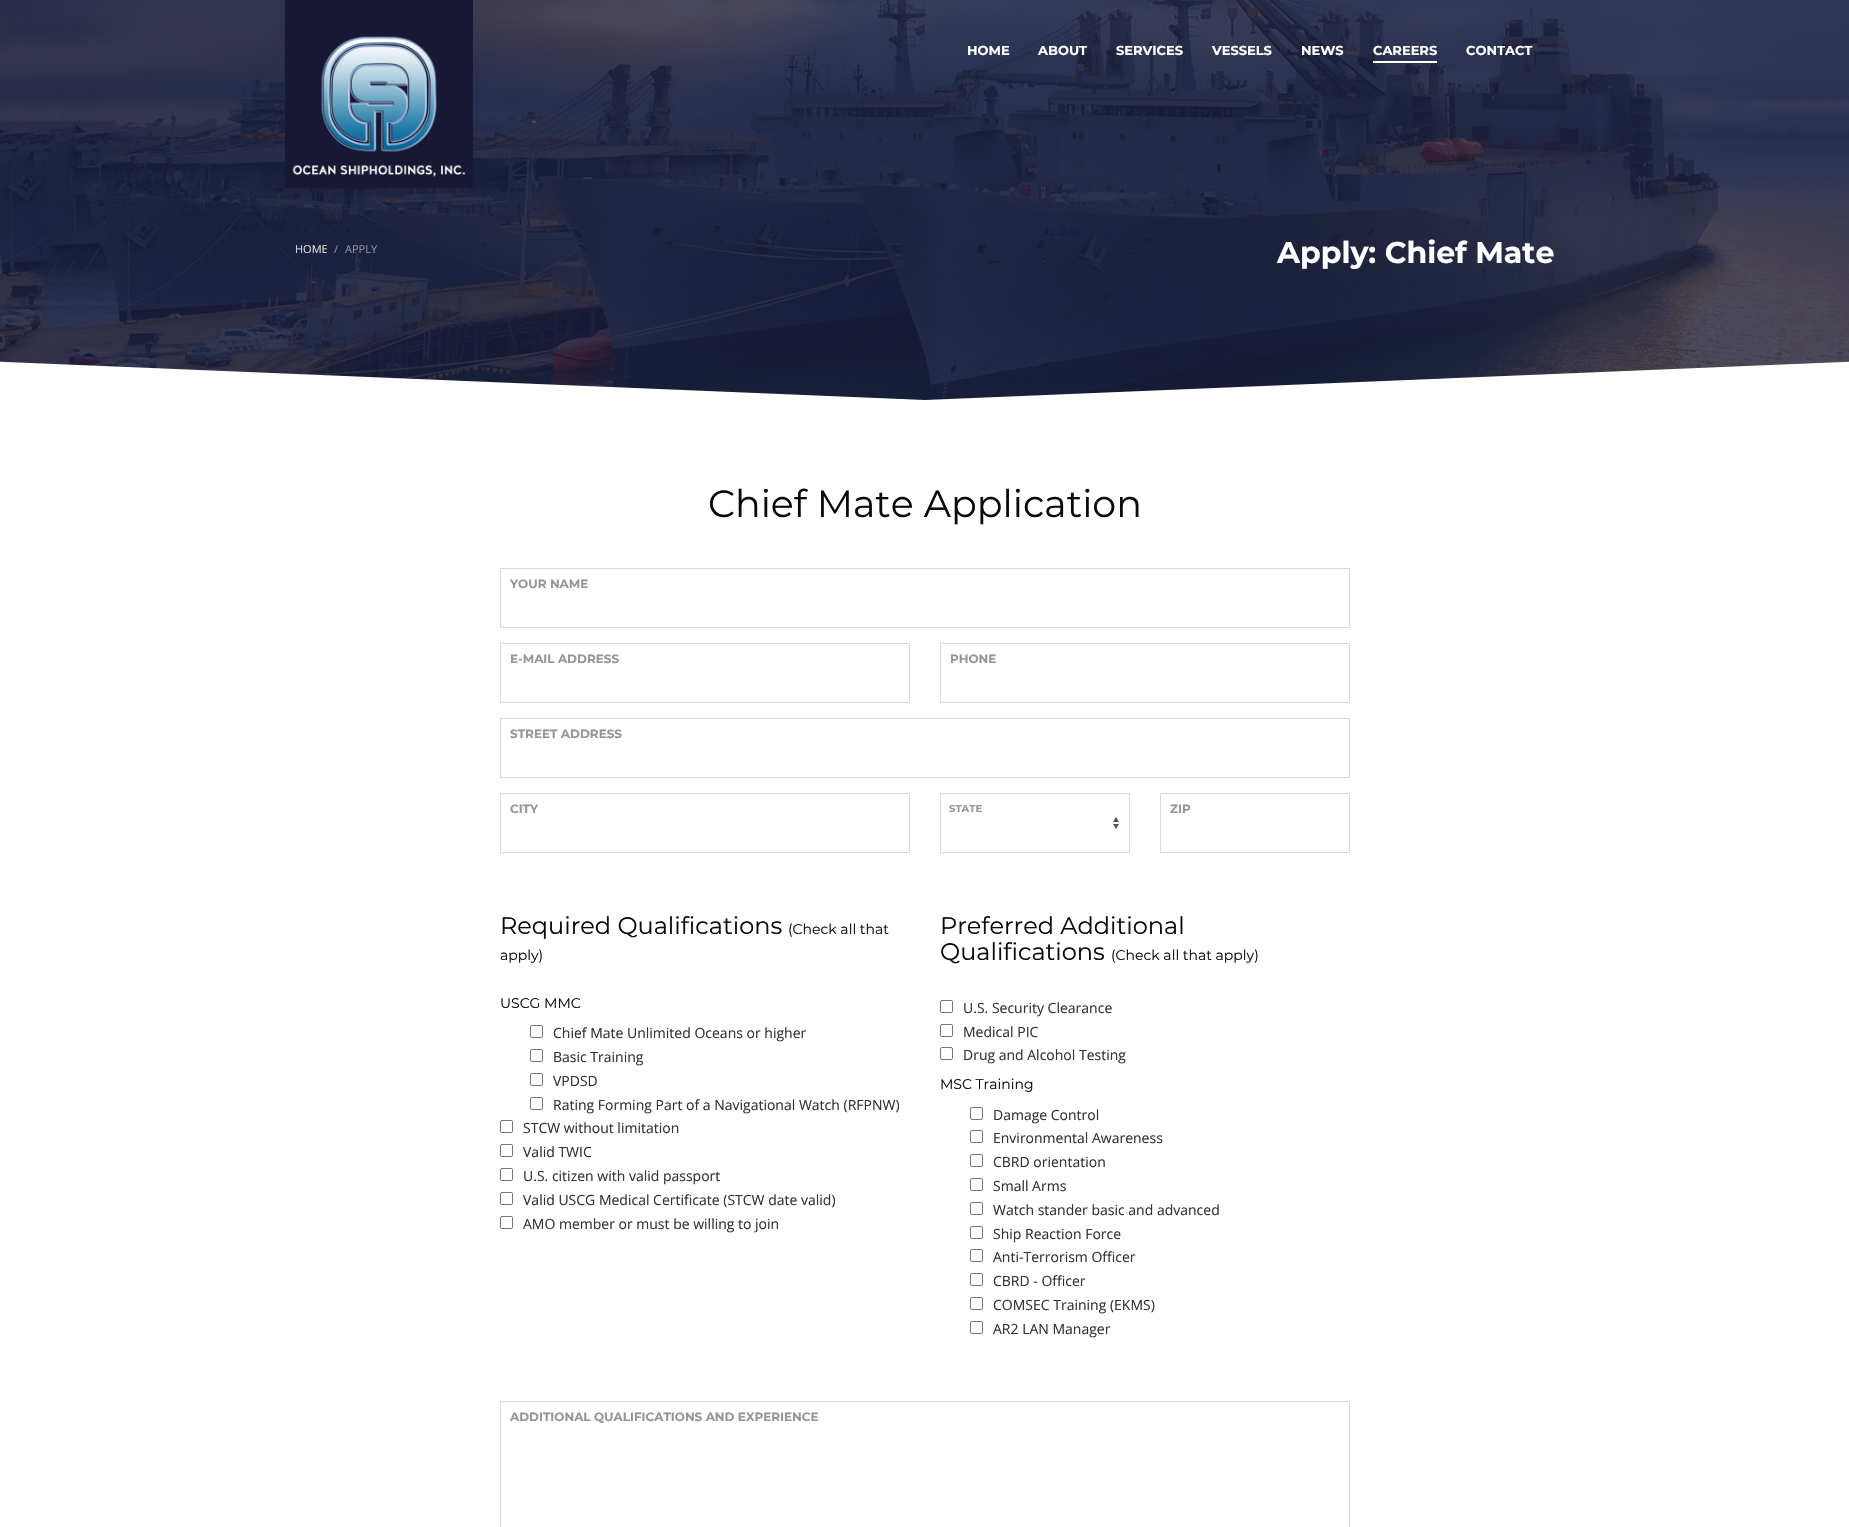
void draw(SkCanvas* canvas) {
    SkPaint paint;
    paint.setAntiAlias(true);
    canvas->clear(0xFFFFFFFF);
    canvas->drawImageRect(SkImages::DeferredFromEncodedData(SkData::MakeFromFileName("img2.png")), SkRect::MakeXYWH(0, 0, 1849, 400), SkSamplingOptions());
    canvas->drawImageRect(SkImages::DeferredFromEncodedData(SkData::MakeFromFileName("img1.png")), SkRect::MakeXYWH(285, 0, 188, 188), SkSamplingOptions());
    SkFont font1(fontMgr->matchFamilyStyle("Montserrat", SkFontStyle::Bold()), 13);
    font1.setSubpixel(true);
    paint.setColor(0xFFFFFFFF);
    canvas->drawString("HOME", 967, 55, font1, paint);
    canvas->drawString("ABOUT", 1038, 55, font1, paint);
    canvas->drawString("SERVICES", 1116, 55, font1, paint);
    canvas->drawString("VESSELS", 1212, 55, font1, paint);
    canvas->drawString("NEWS", 1301, 55, font1, paint);
    canvas->drawString("CAREERS", 1373, 55, font1, paint);
    canvas->drawRect(SkRect::MakeXYWH(1373, 61, 64, 2), paint);
    canvas->drawString("CONTACT", 1466, 55, font1, paint);
    SkFont font2(fontMgr->matchFamilyStyle("Open Sans", SkFontStyle::Normal()), 11);
    font2.setSubpixel(true);
    paint.setColor(0xFFDDDEE2);
    canvas->drawString("HOME", 295, 253, font2, paint);
    paint.setColor(0xFF8D909E);
    canvas->drawString("/", 334, 253, font2, paint);
    canvas->drawString("APPLY", 345, 253, font2, paint);
    SkFont font3(fontMgr->matchFamilyStyle("Montserrat", SkFontStyle::Bold()), 30);
    font3.setSubpixel(true);
    paint.setColor(0xFFFFFFFF);
    canvas->drawString("Apply: Chief Mate", 1277, 263, font3, paint);
    canvas->drawPath(SkPathBuilder().moveTo(-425, 401).lineTo(-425, 344).lineTo(925, 400).lineTo(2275, 344).lineTo(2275, 401).close().detach(), paint);
    SkFont font4(fontMgr->matchFamilyStyle("Montserrat", SkFontStyle::Normal()), 38);
    font4.setSubpixel(true);
    paint.setColor(0xFF0A0A0A);
    canvas->drawString("Chief Mate Application", 708, 517, font4, paint);
    paint.setStyle(SkPaint::kStroke_Style);
    paint.setStrokeWidth(1);
    paint.setColor(0xFFD9D9D9);
    canvas->drawRect(SkRect::MakeXYWH(500.5f, 568.5f, 849, 59), paint);
    SkFont font5(fontMgr->matchFamilyStyle("Montserrat", SkFontStyle::Bold()), 12);
    font5.setSubpixel(true);
    paint.setStyle(SkPaint::kFill_Style);
    paint.setColor(0xFF969696);
    canvas->drawString("YOUR NAME", 510, 588, font5, paint);
    paint.setStyle(SkPaint::kStroke_Style);
    paint.setColor(0xFFD9D9D9);
    canvas->drawRect(SkRect::MakeXYWH(500.5f, 643.5f, 409, 59), paint);
    paint.setStyle(SkPaint::kFill_Style);
    paint.setColor(0xFF969696);
    canvas->drawString("E-MAIL ADDRESS", 510, 663, font5, paint);
    paint.setStyle(SkPaint::kStroke_Style);
    paint.setColor(0xFFD9D9D9);
    canvas->drawRect(SkRect::MakeXYWH(940.5f, 643.5f, 409, 59), paint);
    paint.setStyle(SkPaint::kFill_Style);
    paint.setColor(0xFF969696);
    canvas->drawString("PHONE", 950, 663, font5, paint);
    paint.setStyle(SkPaint::kStroke_Style);
    paint.setColor(0xFFD9D9D9);
    canvas->drawRect(SkRect::MakeXYWH(500.5f, 718.5f, 849, 59), paint);
    paint.setStyle(SkPaint::kFill_Style);
    paint.setColor(0xFF969696);
    canvas->drawString("STREET ADDRESS", 510, 738, font5, paint);
    paint.setStyle(SkPaint::kStroke_Style);
    paint.setColor(0xFFD9D9D9);
    canvas->drawRect(SkRect::MakeXYWH(500.5f, 793.5f, 409, 59), paint);
    paint.setStyle(SkPaint::kFill_Style);
    paint.setColor(0xFF969696);
    canvas->drawString("CITY", 510, 813, font5, paint);
    canvas->drawImageRect(SkImages::DeferredFromEncodedData(SkData::MakeFromFileName("img3.png")), SkRect::MakeXYWH(1113, 817, 6, 12), SkSamplingOptions());
    paint.setStyle(SkPaint::kStroke_Style);
    paint.setColor(0xFFD9D9D9);
    canvas->drawRect(SkRect::MakeXYWH(940.5f, 793.5f, 189, 59), paint);
    SkFont font6(fontMgr->matchFamilyStyle("Montserrat", SkFontStyle::Bold()), 10);
    font6.setSubpixel(true);
    paint.setStyle(SkPaint::kFill_Style);
    paint.setColor(0xFF969696);
    canvas->drawString("STATE", 949, 812, font6, paint);
    paint.setStyle(SkPaint::kStroke_Style);
    paint.setColor(0xFFD9D9D9);
    canvas->drawRect(SkRect::MakeXYWH(1160.5f, 793.5f, 189, 59), paint);
    paint.setStyle(SkPaint::kFill_Style);
    paint.setColor(0xFF969696);
    canvas->drawString("ZIP", 1170, 813, font5, paint);
    SkFont font7(fontMgr->matchFamilyStyle("Montserrat", SkFontStyle::Normal()), 24);
    font7.setSubpixel(true);
    paint.setColor(0xFF0A0A0A);
    canvas->drawString("Required Qualifications", 500, 934, font7, paint);
    SkFont font8(fontMgr->matchFamilyStyle("Montserrat", SkFontStyle::Normal()), 14);
    font8.setSubpixel(true);
    canvas->drawString("(Check all that", 788, 934, font8, paint);
    canvas->drawString("apply)", 500, 960, font8, paint);
    canvas->drawString("USCG MMC", 500, 1008, font8, paint);
    paint.setStyle(SkPaint::kStroke_Style);
    paint.setColor(0xFF767676);
    canvas->drawRoundRect(SkRect::MakeXYWH(530.5f, 1025.5f, 12, 12), 1.5f, 1.5f, paint);
    SkFont font9(fontMgr->matchFamilyStyle("Open Sans", SkFontStyle::Normal()), 14);
    font9.setSubpixel(true);
    paint.setStyle(SkPaint::kFill_Style);
    paint.setColor(0xFF333333);
    canvas->drawString("Chief Mate Unlimited Oceans or higher", 553, 1038, font9, paint);
    paint.setStyle(SkPaint::kStroke_Style);
    paint.setColor(0xFF767676);
    canvas->drawRoundRect(SkRect::MakeXYWH(530.5f, 1049.5f, 12, 12), 1.5f, 1.5f, paint);
    paint.setStyle(SkPaint::kFill_Style);
    paint.setColor(0xFF333333);
    canvas->drawString("Basic Training", 553, 1062, font9, paint);
    paint.setStyle(SkPaint::kStroke_Style);
    paint.setColor(0xFF767676);
    canvas->drawRoundRect(SkRect::MakeXYWH(530.5f, 1073.5f, 12, 12), 1.5f, 1.5f, paint);
    paint.setStyle(SkPaint::kFill_Style);
    paint.setColor(0xFF333333);
    canvas->drawString("VPDSD", 553, 1086, font9, paint);
    paint.setStyle(SkPaint::kStroke_Style);
    paint.setColor(0xFF767676);
    canvas->drawRoundRect(SkRect::MakeXYWH(530.5f, 1097.5f, 12, 12), 1.5f, 1.5f, paint);
    paint.setStyle(SkPaint::kFill_Style);
    paint.setColor(0xFF333333);
    canvas->drawString("Rating Forming Part of a Navigational Watch (RFPNW)", 553, 1110, font9, paint);
    paint.setStyle(SkPaint::kStroke_Style);
    paint.setColor(0xFF767676);
    canvas->drawRoundRect(SkRect::MakeXYWH(500.5f, 1120.5f, 12, 12), 1.5f, 1.5f, paint);
    paint.setStyle(SkPaint::kFill_Style);
    paint.setColor(0xFF333333);
    canvas->drawString("STCW without limitation", 523, 1133, font9, paint);
    paint.setStyle(SkPaint::kStroke_Style);
    paint.setColor(0xFF767676);
    canvas->drawRoundRect(SkRect::MakeXYWH(500.5f, 1144.5f, 12, 12), 1.5f, 1.5f, paint);
    paint.setStyle(SkPaint::kFill_Style);
    paint.setColor(0xFF333333);
    canvas->drawString("Valid TWIC", 523, 1157, font9, paint);
    paint.setStyle(SkPaint::kStroke_Style);
    paint.setColor(0xFF767676);
    canvas->drawRoundRect(SkRect::MakeXYWH(500.5f, 1168.5f, 12, 12), 1.5f, 1.5f, paint);
    paint.setStyle(SkPaint::kFill_Style);
    paint.setColor(0xFF333333);
    canvas->drawString("U.S. citizen with valid passport", 523, 1181, font9, paint);
    paint.setStyle(SkPaint::kStroke_Style);
    paint.setColor(0xFF767676);
    canvas->drawRoundRect(SkRect::MakeXYWH(500.5f, 1192.5f, 12, 12), 1.5f, 1.5f, paint);
    paint.setStyle(SkPaint::kFill_Style);
    paint.setColor(0xFF333333);
    canvas->drawString("Valid USCG Medical Certificate (STCW date valid)", 523, 1205, font9, paint);
    paint.setStyle(SkPaint::kStroke_Style);
    paint.setColor(0xFF767676);
    canvas->drawRoundRect(SkRect::MakeXYWH(500.5f, 1216.5f, 12, 12), 1.5f, 1.5f, paint);
    paint.setStyle(SkPaint::kFill_Style);
    paint.setColor(0xFF333333);
    canvas->drawString("AMO member or must be willing to join", 523, 1229, font9, paint);
    paint.setColor(0xFF0A0A0A);
    canvas->drawString("Preferred Additional", 940, 934, font7, paint);
    canvas->drawString("Qualifications", 940, 960, font7, paint);
    canvas->drawString("(Check all that apply)", 1111, 960, font8, paint);
    paint.setStyle(SkPaint::kStroke_Style);
    paint.setColor(0xFF767676);
    canvas->drawRoundRect(SkRect::MakeXYWH(940.5f, 1000.5f, 12, 12), 1.5f, 1.5f, paint);
    paint.setStyle(SkPaint::kFill_Style);
    paint.setColor(0xFF333333);
    canvas->drawString("U.S. Security Clearance", 963, 1013, font9, paint);
    paint.setStyle(SkPaint::kStroke_Style);
    paint.setColor(0xFF767676);
    canvas->drawRoundRect(SkRect::MakeXYWH(940.5f, 1024.5f, 12, 12), 1.5f, 1.5f, paint);
    paint.setStyle(SkPaint::kFill_Style);
    paint.setColor(0xFF333333);
    canvas->drawString("Medical PIC", 963, 1037, font9, paint);
    paint.setStyle(SkPaint::kStroke_Style);
    paint.setColor(0xFF767676);
    canvas->drawRoundRect(SkRect::MakeXYWH(940.5f, 1047.5f, 12, 12), 1.5f, 1.5f, paint);
    paint.setStyle(SkPaint::kFill_Style);
    paint.setColor(0xFF333333);
    canvas->drawString("Drug and Alcohol Testing", 963, 1060, font9, paint);
    paint.setColor(0xFF0A0A0A);
    canvas->drawString("MSC Training", 940, 1089, font8, paint);
    paint.setStyle(SkPaint::kStroke_Style);
    paint.setColor(0xFF767676);
    canvas->drawRoundRect(SkRect::MakeXYWH(970.5f, 1107.5f, 12, 12), 1.5f, 1.5f, paint);
    paint.setStyle(SkPaint::kFill_Style);
    paint.setColor(0xFF333333);
    canvas->drawString("Damage Control", 993, 1120, font9, paint);
    paint.setStyle(SkPaint::kStroke_Style);
    paint.setColor(0xFF767676);
    canvas->drawRoundRect(SkRect::MakeXYWH(970.5f, 1130.5f, 12, 12), 1.5f, 1.5f, paint);
    paint.setStyle(SkPaint::kFill_Style);
    paint.setColor(0xFF333333);
    canvas->drawString("Environmental Awareness", 993, 1143, font9, paint);
    paint.setStyle(SkPaint::kStroke_Style);
    paint.setColor(0xFF767676);
    canvas->drawRoundRect(SkRect::MakeXYWH(970.5f, 1154.5f, 12, 12), 1.5f, 1.5f, paint);
    paint.setStyle(SkPaint::kFill_Style);
    paint.setColor(0xFF333333);
    canvas->drawString("CBRD orientation", 993, 1167, font9, paint);
    paint.setStyle(SkPaint::kStroke_Style);
    paint.setColor(0xFF767676);
    canvas->drawRoundRect(SkRect::MakeXYWH(970.5f, 1178.5f, 12, 12), 1.5f, 1.5f, paint);
    paint.setStyle(SkPaint::kFill_Style);
    paint.setColor(0xFF333333);
    canvas->drawString("Small Arms", 993, 1191, font9, paint);
    paint.setStyle(SkPaint::kStroke_Style);
    paint.setColor(0xFF767676);
    canvas->drawRoundRect(SkRect::MakeXYWH(970.5f, 1202.5f, 12, 12), 1.5f, 1.5f, paint);
    paint.setStyle(SkPaint::kFill_Style);
    paint.setColor(0xFF333333);
    canvas->drawString("Watch stander basic and advanced", 993, 1215, font9, paint);
    paint.setStyle(SkPaint::kStroke_Style);
    paint.setColor(0xFF767676);
    canvas->drawRoundRect(SkRect::MakeXYWH(970.5f, 1226.5f, 12, 12), 1.5f, 1.5f, paint);
    paint.setStyle(SkPaint::kFill_Style);
    paint.setColor(0xFF333333);
    canvas->drawString("Ship Reaction Force", 993, 1239, font9, paint);
    paint.setStyle(SkPaint::kStroke_Style);
    paint.setColor(0xFF767676);
    canvas->drawRoundRect(SkRect::MakeXYWH(970.5f, 1249.5f, 12, 12), 1.5f, 1.5f, paint);
    paint.setStyle(SkPaint::kFill_Style);
    paint.setColor(0xFF333333);
    canvas->drawString("Anti-Terrorism Officer", 993, 1262, font9, paint);
    paint.setStyle(SkPaint::kStroke_Style);
    paint.setColor(0xFF767676);
    canvas->drawRoundRect(SkRect::MakeXYWH(970.5f, 1273.5f, 12, 12), 1.5f, 1.5f, paint);
    paint.setStyle(SkPaint::kFill_Style);
    paint.setColor(0xFF333333);
    canvas->drawString("CBRD - Officer", 993, 1286, font9, paint);
    paint.setStyle(SkPaint::kStroke_Style);
    paint.setColor(0xFF767676);
    canvas->drawRoundRect(SkRect::MakeXYWH(970.5f, 1297.5f, 12, 12), 1.5f, 1.5f, paint);
    paint.setStyle(SkPaint::kFill_Style);
    paint.setColor(0xFF333333);
    canvas->drawString("COMSEC Training (EKMS)", 993, 1310, font9, paint);
    paint.setStyle(SkPaint::kStroke_Style);
    paint.setColor(0xFF767676);
    canvas->drawRoundRect(SkRect::MakeXYWH(970.5f, 1321.5f, 12, 12), 1.5f, 1.5f, paint);
    paint.setStyle(SkPaint::kFill_Style);
    paint.setColor(0xFF333333);
    canvas->drawString("AR2 LAN Manager", 993, 1334, font9, paint);
    paint.setStyle(SkPaint::kStroke_Style);
    paint.setColor(0xFFD9D9D9);
    canvas->drawRect(SkRect::MakeXYWH(500.5f, 1401.5f, 849, 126), paint);
    paint.setStyle(SkPaint::kFill_Style);
    paint.setColor(0xFF969696);
    canvas->drawString("ADDITIONAL QUALIFICATIONS AND EXPERIENCE", 510, 1421, font5, paint);
}
